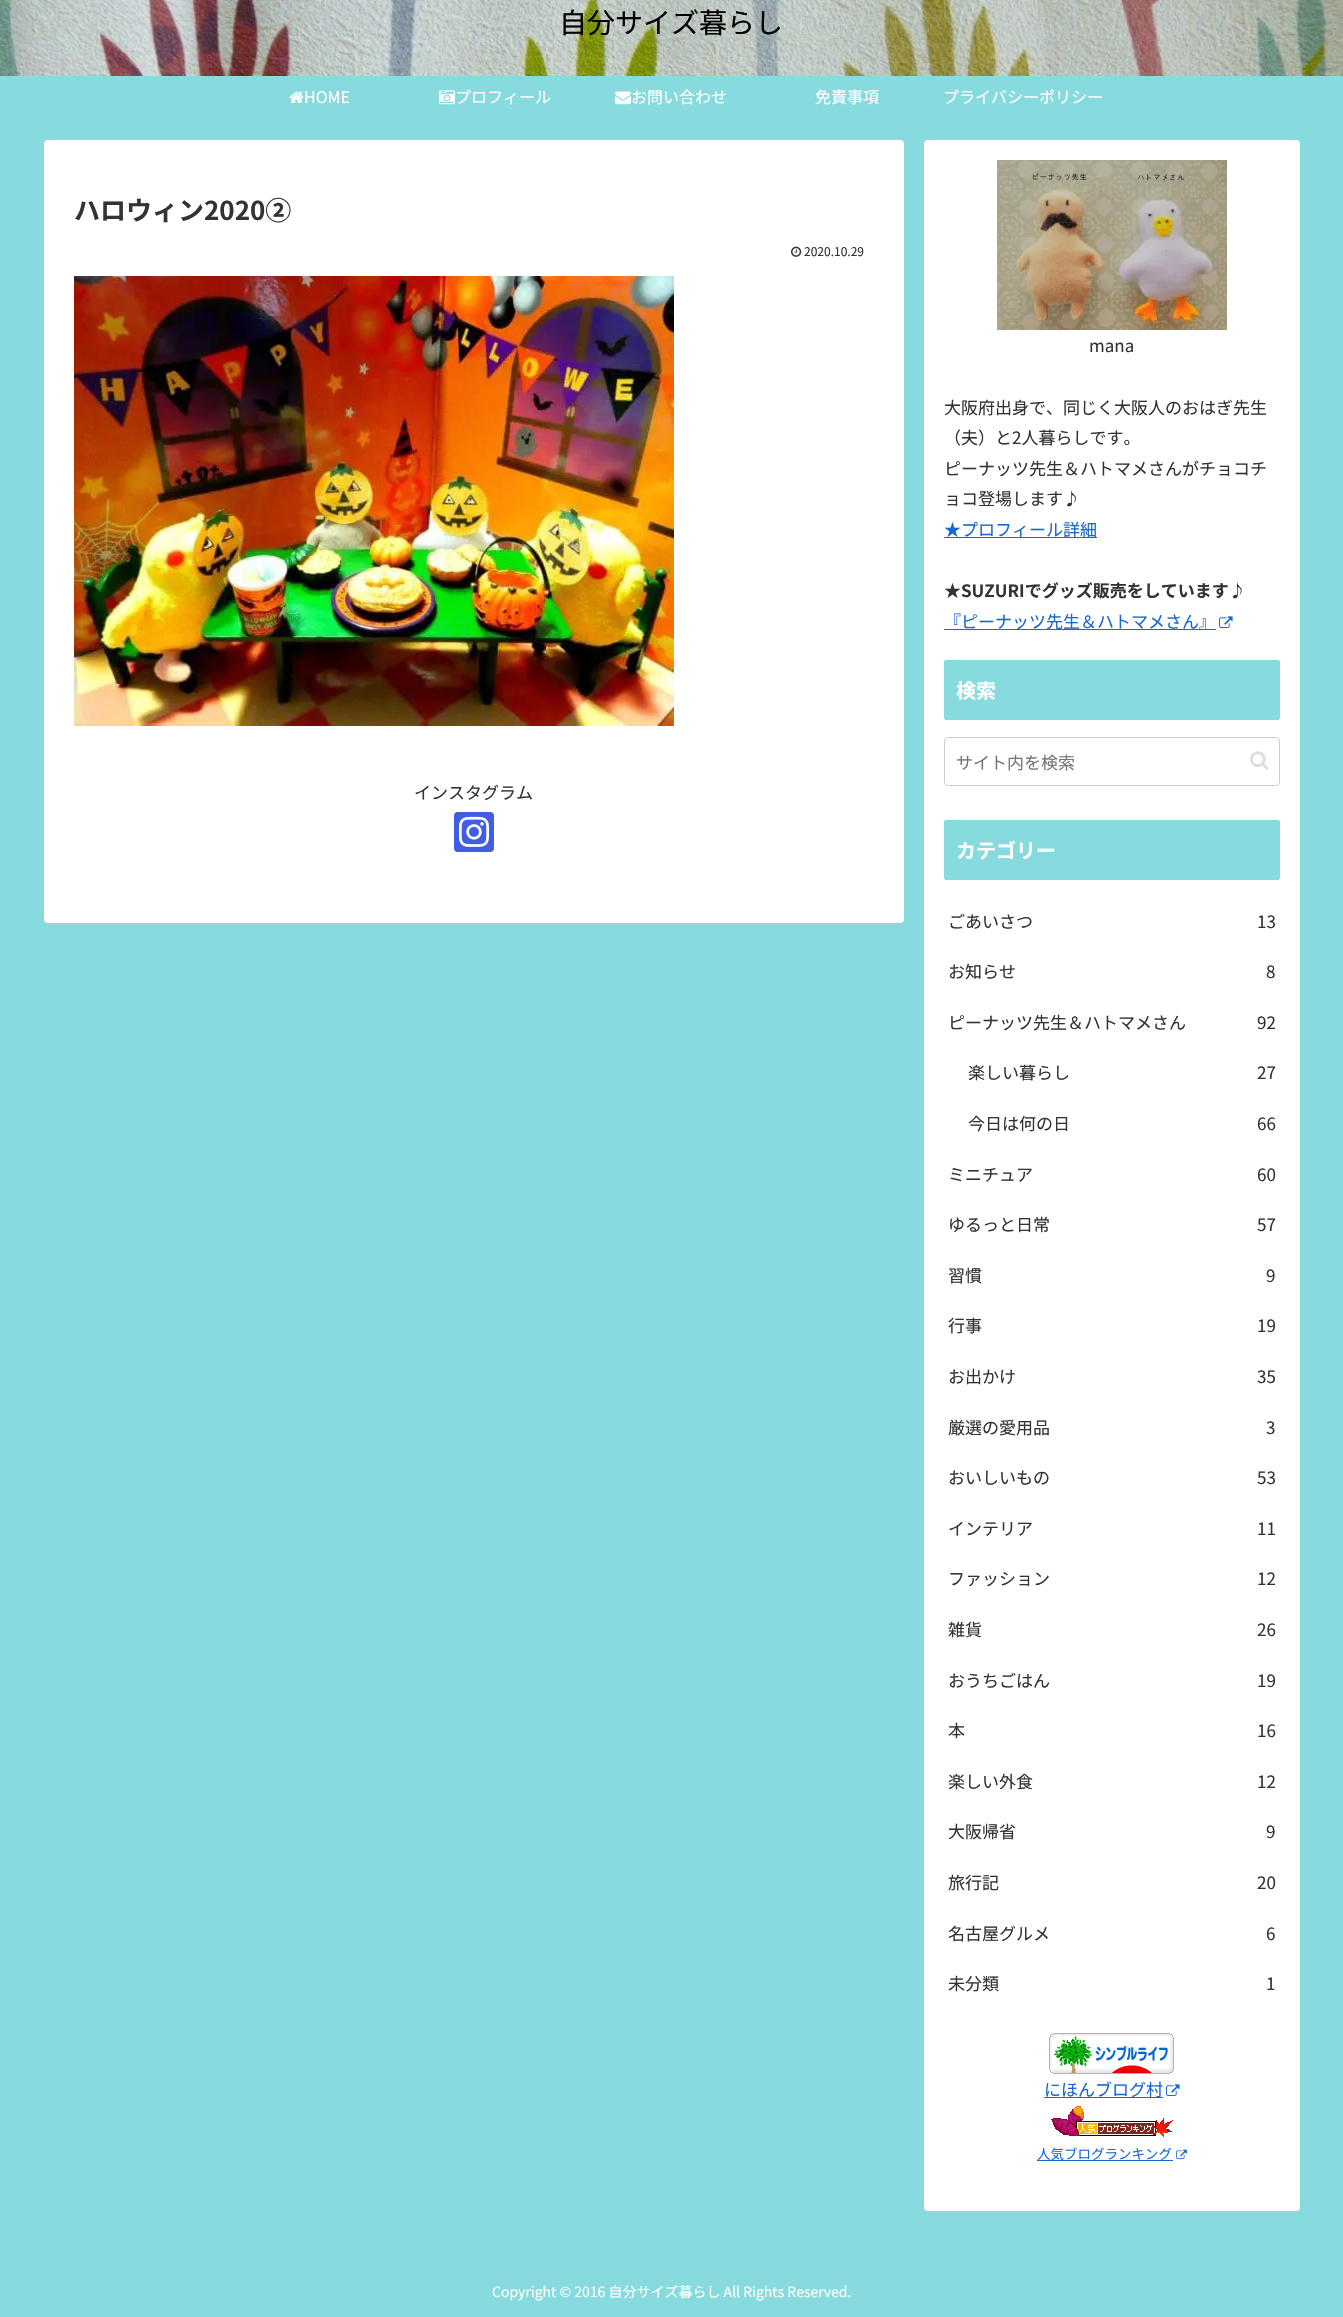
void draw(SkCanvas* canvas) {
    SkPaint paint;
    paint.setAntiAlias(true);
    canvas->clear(0xFF87DADD);
    canvas->drawImageRect(SkImages::DeferredFromEncodedData(SkData::MakeFromFileName("img1.png")), SkRect::MakeXYWH(0, 0, 1343, 76), SkSamplingOptions());
    SkFont font1(fontMgr->matchFamilyStyle("Noto Sans JP", SkFontStyle::Normal()), 28);
    font1.setSubpixel(true);
    paint.setColor(0xFF000000);
    canvas->drawString("自分サイズ暮らし", 559, 33, font1, paint);
    canvas->drawImageRect(SkImages::DeferredFromEncodedData(SkData::MakeFromFileName("img2.png")), SkRect::MakeXYWH(289, 91, 15, 12), SkSamplingOptions());
    SkFont font2(fontMgr->matchFamilyStyle("Noto Sans JP", SkFontStyle::Normal()), 16);
    font2.setSubpixel(true);
    paint.setColor(0xFFFFFFFF);
    canvas->drawString("HOME", 304, 103, font2, paint);
    canvas->drawImageRect(SkImages::DeferredFromEncodedData(SkData::MakeFromFileName("img3.png")), SkRect::MakeXYWH(439, 90, 16, 15), SkSamplingOptions());
    canvas->drawString("プロフィール", 455, 103, font2, paint);
    canvas->drawImageRect(SkImages::DeferredFromEncodedData(SkData::MakeFromFileName("img4.png")), SkRect::MakeXYWH(615, 91, 16, 14), SkSamplingOptions());
    canvas->drawString("お問い合わせ", 631, 103, font2, paint);
    canvas->drawString("免責事項", 815, 103, font2, paint);
    canvas->drawString("プライバシーポリシー", 943, 103, font2, paint);
    canvas->drawRoundRect(SkRect::MakeXYWH(44, 140, 860, 783), 4, 4, paint);
    SkFont font3(fontMgr->matchFamilyStyle("Noto Sans JP", SkFontStyle::Bold()), 26);
    font3.setSubpixel(true);
    paint.setColor(0xFF333333);
    canvas->drawString("ハロウィン2020②", 74, 220, font3, paint);
    canvas->drawImageRect(SkImages::DeferredFromEncodedData(SkData::MakeFromFileName("img5.png")), SkRect::MakeXYWH(791, 246, 11, 11), SkSamplingOptions());
    SkFont font4(fontMgr->matchFamilyStyle("Noto Sans JP", SkFontStyle::Normal()), 12);
    font4.setSubpixel(true);
    canvas->drawString("2020.10.29", 804, 256, font4, paint);
    canvas->drawImageRect(SkImages::DeferredFromEncodedData(SkData::MakeFromFileName("img6.png")), SkRect::MakeXYWH(74, 276, 600, 450), SkSamplingOptions());
    SkFont font5(fontMgr->matchFamilyStyle("Noto Sans JP", SkFontStyle::Normal()), 17);
    font5.setSubpixel(true);
    canvas->drawString("インスタグラム", 414, 799, font5, paint);
    paint.setColor(0xFF405DE6);
    canvas->drawRoundRect(SkRect::MakeXYWH(454, 812, 40, 40), 4, 4, paint);
    canvas->drawImageRect(SkImages::DeferredFromEncodedData(SkData::MakeFromFileName("img7.png")), SkRect::MakeXYWH(459, 816, 30, 31), SkSamplingOptions());
    paint.setColor(0xFFFFFFFF);
    canvas->drawRoundRect(SkRect::MakeXYWH(924, 140, 376, 2071), 4, 4, paint);
    canvas->drawImageRect(SkImages::DeferredFromEncodedData(SkData::MakeFromFileName("img8.png")), SkRect::MakeXYWH(997, 160, 230, 170), SkSamplingOptions());
    paint.setColor(0xFF333333);
    canvas->drawString("mana", 1089, 352, font5, paint);
    canvas->drawString("大阪府出身で、同じく大阪人のおはぎ先生", 944, 414, font5, paint);
    canvas->drawString("（夫）と2人暮らしです。", 944, 444, font5, paint);
    canvas->drawString("ピーナッツ先生＆ハトマメさんがチョコチ", 944, 475, font5, paint);
    canvas->drawString("ョコ登場します♪", 944, 505, font5, paint);
    paint.setColor(0xFF1967D2);
    canvas->drawRect(SkRect::MakeXYWH(944, 537, 153, 1), paint);
    canvas->drawString("★プロフィール詳細", 944, 536, font5, paint);
    SkFont font6(fontMgr->matchFamilyStyle("Noto Sans JP", SkFontStyle::Bold()), 17);
    font6.setSubpixel(true);
    paint.setColor(0xFF333333);
    canvas->drawString("★SUZURIでグッズ販売をしています♪", 944, 597, font6, paint);
    paint.setColor(0xFF1967D2);
    canvas->drawRect(SkRect::MakeXYWH(944, 629, 272, 1), paint);
    canvas->drawString("『ピーナッツ先生＆ハトマメさん』", 944, 628, font5, paint);
    canvas->drawImageRect(SkImages::DeferredFromEncodedData(SkData::MakeFromFileName("img9.png")), SkRect::MakeXYWH(1219, 616, 14, 12), SkSamplingOptions());
    paint.setColor(0xFF87DADD);
    canvas->drawRoundRect(SkRect::MakeXYWH(944, 660, 336, 60), 2, 2, paint);
    SkFont font7(fontMgr->matchFamilyStyle("Noto Sans JP", SkFontStyle::Bold()), 20);
    font7.setSubpixel(true);
    paint.setColor(0xFFFFFFFF);
    canvas->drawString("検索", 956, 698, font7, paint);
    paint.setStyle(SkPaint::kStroke_Style);
    paint.setStrokeWidth(1);
    paint.setColor(0xFFCCCCCC);
    canvas->drawRoundRect(SkRect::MakeXYWH(944.5f, 737.5f, 335, 48), 3.5f, 3.5f, paint);
    paint.setStyle(SkPaint::kFill_Style);
    paint.setColor(0xFF757575);
    canvas->drawString("サイト内を検索", 956, 769, font5, paint);
    canvas->drawImageRect(SkImages::DeferredFromEncodedData(SkData::MakeFromFileName("img10.png")), SkRect::MakeXYWH(1250, 751, 19, 19), SkSamplingOptions());
    paint.setColor(0xFF87DADD);
    canvas->drawRoundRect(SkRect::MakeXYWH(944, 820, 336, 60), 2, 2, paint);
    paint.setColor(0xFFFFFFFF);
    canvas->drawString("カテゴリー", 956, 858, font7, paint);
    paint.setColor(0xFF333333);
    canvas->drawString("ごあいさつ", 948, 928, font5, paint);
    canvas->drawString("13", 1257, 928, font5, paint);
    canvas->drawString("お知らせ", 948, 978, font5, paint);
    canvas->drawString("8", 1266, 978, font5, paint);
    canvas->drawString("ピーナッツ先生＆ハトマメさん", 948, 1029, font5, paint);
    canvas->drawString("92", 1257, 1029, font5, paint);
    canvas->drawString("楽しい暮らし", 968, 1079, font5, paint);
    canvas->drawString("27", 1257, 1079, font5, paint);
    canvas->drawString("今日は何の日", 968, 1130, font5, paint);
    canvas->drawString("66", 1257, 1130, font5, paint);
    canvas->drawString("ミニチュア", 948, 1181, font5, paint);
    canvas->drawString("60", 1257, 1181, font5, paint);
    canvas->drawString("ゆるっと日常", 948, 1231, font5, paint);
    canvas->drawString("57", 1257, 1231, font5, paint);
    canvas->drawString("習慣", 948, 1282, font5, paint);
    canvas->drawString("9", 1266, 1282, font5, paint);
    canvas->drawString("行事", 948, 1332, font5, paint);
    canvas->drawString("19", 1257, 1332, font5, paint);
    canvas->drawString("お出かけ", 948, 1383, font5, paint);
    canvas->drawString("35", 1257, 1383, font5, paint);
    canvas->drawString("厳選の愛用品", 948, 1434, font5, paint);
    canvas->drawString("3", 1266, 1434, font5, paint);
    canvas->drawString("おいしいもの", 948, 1484, font5, paint);
    canvas->drawString("53", 1257, 1484, font5, paint);
    canvas->drawString("インテリア", 948, 1535, font5, paint);
    canvas->drawString("11", 1257, 1535, font5, paint);
    canvas->drawString("ファッション", 948, 1585, font5, paint);
    canvas->drawString("12", 1257, 1585, font5, paint);
    canvas->drawString("雑貨", 948, 1636, font5, paint);
    canvas->drawString("26", 1257, 1636, font5, paint);
    canvas->drawString("おうちごはん", 948, 1687, font5, paint);
    canvas->drawString("19", 1257, 1687, font5, paint);
    canvas->drawString("本", 948, 1737, font5, paint);
    canvas->drawString("16", 1257, 1737, font5, paint);
    canvas->drawString("楽しい外食", 948, 1788, font5, paint);
    canvas->drawString("12", 1257, 1788, font5, paint);
    canvas->drawString("大阪帰省", 948, 1838, font5, paint);
    canvas->drawString("9", 1266, 1838, font5, paint);
    canvas->drawString("旅行記", 948, 1889, font5, paint);
    canvas->drawString("20", 1257, 1889, font5, paint);
    canvas->drawString("名古屋グルメ", 948, 1940, font5, paint);
    canvas->drawString("6", 1266, 1940, font5, paint);
    canvas->drawString("未分類", 948, 1990, font5, paint);
    canvas->drawString("1", 1266, 1990, font5, paint);
    canvas->drawImageRect(SkImages::DeferredFromEncodedData(SkData::MakeFromFileName("img11.png")), SkRect::MakeXYWH(1049, 2033, 125, 41), SkSamplingOptions());
    paint.setColor(0xFF1967D2);
    canvas->drawRect(SkRect::MakeXYWH(1044, 2097, 119, 1), paint);
    canvas->drawString("にほんブログ村", 1044, 2096, font5, paint);
    canvas->drawImageRect(SkImages::DeferredFromEncodedData(SkData::MakeFromFileName("img9.png")), SkRect::MakeXYWH(1166, 2084, 14, 12), SkSamplingOptions());
    canvas->drawImageRect(SkImages::DeferredFromEncodedData(SkData::MakeFromFileName("img12.png")), SkRect::MakeXYWH(1051, 2106, 122, 31), SkSamplingOptions());
    canvas->drawRect(SkRect::MakeXYWH(1037, 2160, 136, 1), paint);
    SkFont font8(fontMgr->matchFamilyStyle("Noto Sans JP", SkFontStyle::Normal()), 13.5f);
    font8.setSubpixel(true);
    canvas->drawString("人気ブログランキング", 1037, 2159, font8, paint);
    canvas->drawImageRect(SkImages::DeferredFromEncodedData(SkData::MakeFromFileName("img13.png")), SkRect::MakeXYWH(1176, 2149, 11, 10), SkSamplingOptions());
    SkFont font9(fontMgr->matchFamilyStyle("Noto Sans JP", SkFontStyle::Normal()), 14);
    font9.setSubpixel(true);
    paint.setColor(0xFFFFFFFF);
    canvas->drawString("Copyright © 2016 自分サイズ暮らし All Rights Reserved.", 492, 2297, font9, paint);
}
